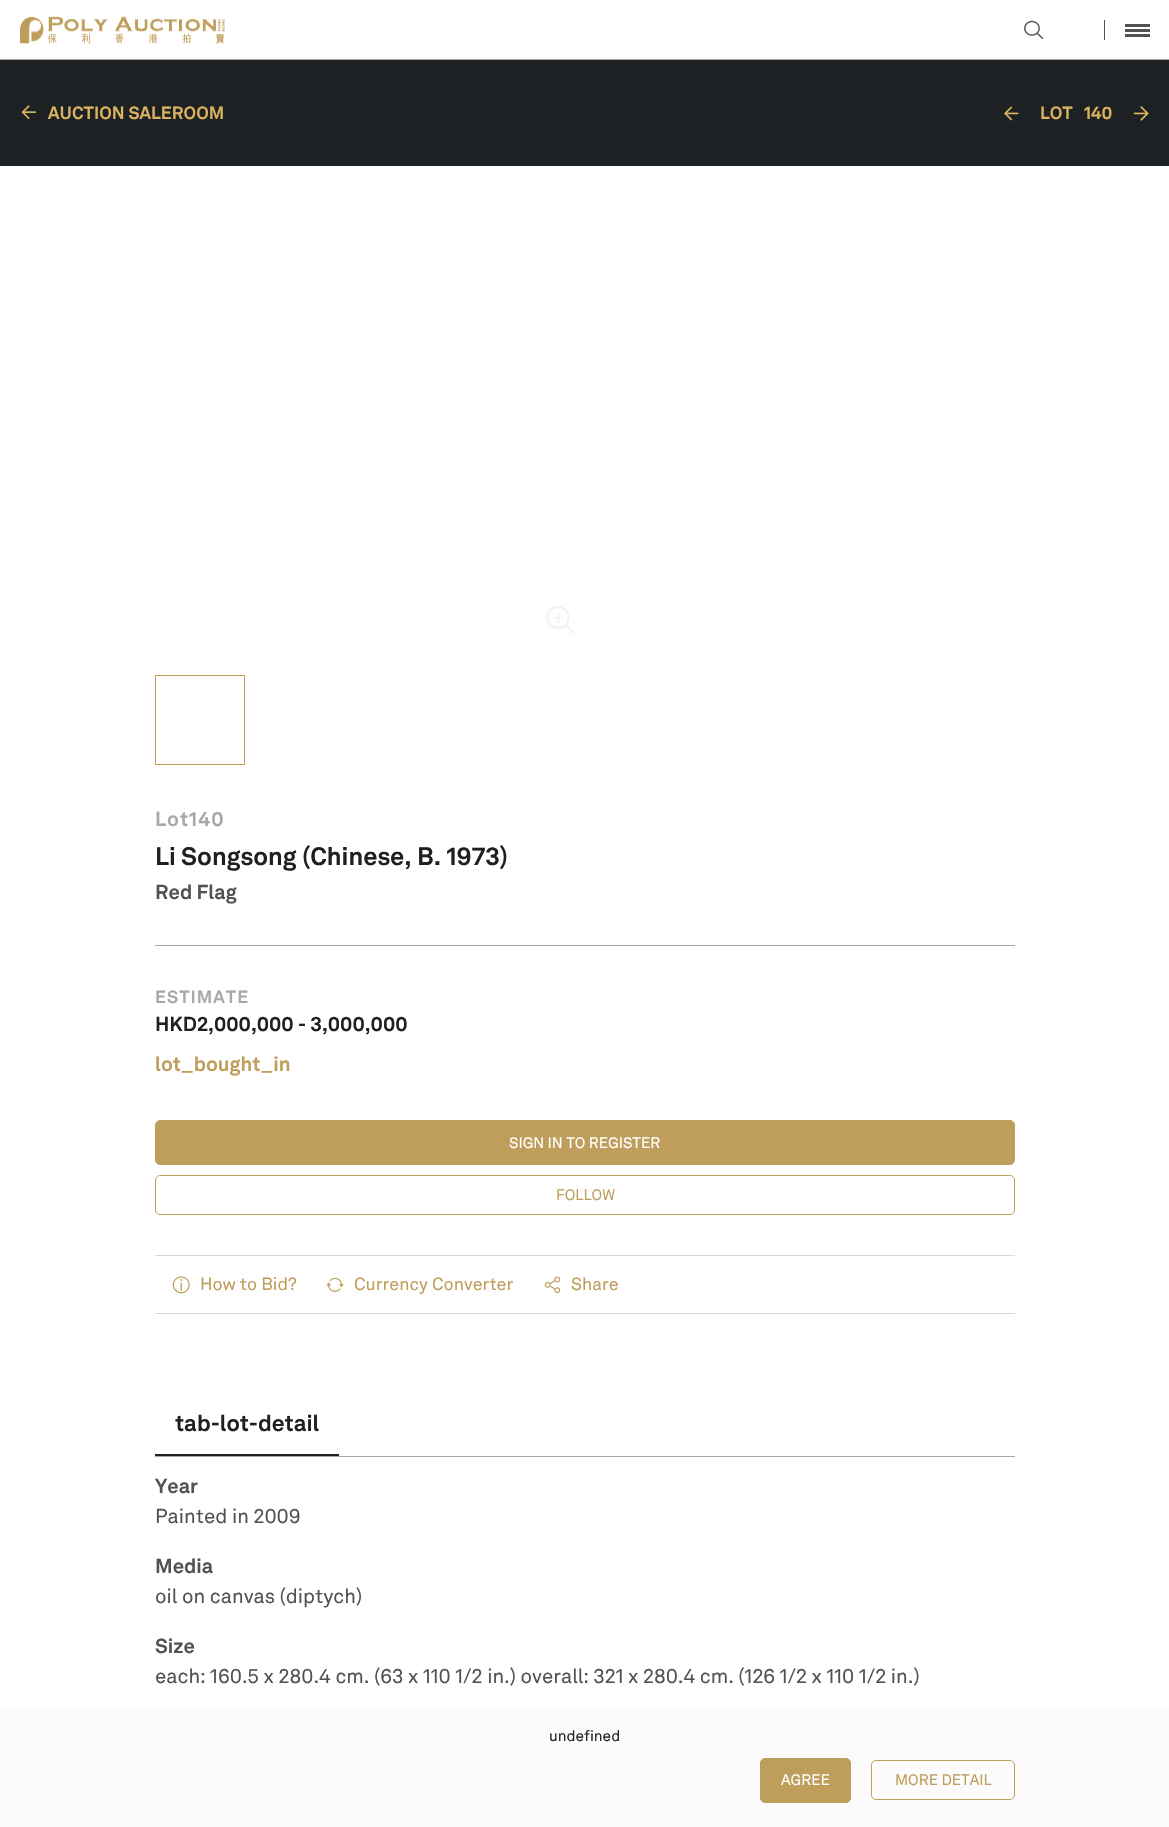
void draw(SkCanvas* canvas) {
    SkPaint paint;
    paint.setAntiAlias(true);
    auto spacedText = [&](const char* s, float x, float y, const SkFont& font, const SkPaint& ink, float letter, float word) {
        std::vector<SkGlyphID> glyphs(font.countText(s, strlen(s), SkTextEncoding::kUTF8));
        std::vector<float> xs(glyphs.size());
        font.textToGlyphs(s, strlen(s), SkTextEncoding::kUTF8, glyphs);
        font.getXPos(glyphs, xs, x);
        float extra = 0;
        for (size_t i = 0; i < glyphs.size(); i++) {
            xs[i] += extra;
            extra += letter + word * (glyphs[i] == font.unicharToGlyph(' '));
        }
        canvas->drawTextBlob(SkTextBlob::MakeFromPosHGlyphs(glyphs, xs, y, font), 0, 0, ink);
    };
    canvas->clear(0xFFFFFFFF);
    paint.setColor(0xFFA8A8A8);
    canvas->drawRect(SkRect::MakeXYWH(0, 59, 1169, 1), paint);
    canvas->drawImageRect(SkImages::DeferredFromEncodedData(SkData::MakeFromFileName("img1.png")), SkRect::MakeXYWH(20, 16, 205, 28), SkSamplingOptions());
    canvas->drawImageRect(SkImages::DeferredFromEncodedData(SkData::MakeFromFileName("img2.png")), SkRect::MakeXYWH(1024, 20, 20, 20), SkSamplingOptions());
    paint.setColor(0xFF525252);
    canvas->drawRect(SkRect::MakeXYWH(1104, 20, 1, 20), paint);
    canvas->drawRect(SkRect::MakeXYWH(1125, 24, 25, 3), paint);
    canvas->drawRect(SkRect::MakeXYWH(1125, 29, 25, 3), paint);
    canvas->drawRect(SkRect::MakeXYWH(1125, 34, 25, 3), paint);
    paint.setColor(0xFF1E2123);
    canvas->drawRect(SkRect::MakeXYWH(0, 60, 1169, 106), paint);
    canvas->drawImageRect(SkImages::DeferredFromEncodedData(SkData::MakeFromFileName("img3.png")), SkRect::MakeXYWH(21, 105, 15, 15), SkSamplingOptions());
    SkFont font1(fontMgr->matchFamilyStyle("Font", SkFontStyle::Bold()), 17.5f);
    font1.setSubpixel(true);
    paint.setColor(0xFFDBB35F);
    canvas->drawString("AUCTION SALEROOM", 48, 119, font1, paint);
    canvas->drawImageRect(SkImages::DeferredFromEncodedData(SkData::MakeFromFileName("img4.png")), SkRect::MakeXYWH(1004, 106, 15, 15), SkSamplingOptions());
    canvas->drawString("LOT", 1040, 119, font1, paint);
    canvas->drawString("140", 1084, 119, font1, paint);
    canvas->drawImageRect(SkImages::DeferredFromEncodedData(SkData::MakeFromFileName("img5.png")), SkRect::MakeXYWH(1133, 106, 16, 15), SkSamplingOptions());
    canvas->drawImageRect(SkImages::DeferredFromEncodedData(SkData::MakeFromFileName("img6.png")), SkRect::MakeXYWH(547, 606, 28, 28), SkSamplingOptions());
    paint.setStyle(SkPaint::kStroke_Style);
    paint.setStrokeWidth(1);
    paint.setColor(0xFFBF9D5A);
    canvas->drawRect(SkRect::MakeXYWH(155.5f, 675.5f, 89, 89), paint);
    SkFont font2(fontMgr->matchFamilyStyle("Font", SkFontStyle::Bold()), 20);
    font2.setSubpixel(true);
    paint.setStyle(SkPaint::kFill_Style);
    paint.setColor(0xFFA8A8A8);
    spacedText("Lot140", 155, 826, font2, paint, 1, 0);
    SkFont font3(fontMgr->matchFamilyStyle("Font", SkFontStyle::Bold()), 25);
    font3.setSubpixel(true);
    paint.setColor(0xFF1E2123);
    canvas->drawString("Li Songsong (Chinese, B. 1973)", 155, 865, font3, paint);
    paint.setColor(0xFF525252);
    canvas->drawString("Red Flag", 155, 899, font2, paint);
    paint.setColor(0xFFA8A8A8);
    canvas->drawRect(SkRect::MakeXYWH(155, 945, 860, 1), paint);
    spacedText("ESTIMATE", 155, 1003, font1, paint, 1, 0);
    paint.setColor(0xFF1E2123);
    canvas->drawString("HKD2,000,000 - 3,000,000", 155, 1031, font2, paint);
    paint.setColor(0xFFBF9D5A);
    canvas->drawString("lot_bought_in", 155, 1071, font2, paint);
    canvas->drawRoundRect(SkRect::MakeXYWH(155.5f, 1120.5f, 859, 44), 4.5f, 4.5f, paint);
    paint.setStyle(SkPaint::kStroke_Style);
    canvas->drawRoundRect(SkRect::MakeXYWH(155.5f, 1120.5f, 859, 44), 4.5f, 4.5f, paint);
    SkFont font4(fontMgr->matchFamilyStyle("Font", SkFontStyle::Normal()), 15);
    font4.setSubpixel(true);
    paint.setStyle(SkPaint::kFill_Style);
    paint.setColor(0xFFFFFFFF);
    canvas->drawString("SIGN IN TO REGISTER", 509, 1148, font4, paint);
    paint.setStyle(SkPaint::kStroke_Style);
    paint.setColor(0xFFBF9D5A);
    canvas->drawRoundRect(SkRect::MakeXYWH(155.5f, 1175.5f, 859, 39), 4.5f, 4.5f, paint);
    paint.setStyle(SkPaint::kFill_Style);
    canvas->drawString("FOLLOW", 556, 1200, font4, paint);
    paint.setColor(0xFFDCD7CF);
    canvas->drawRect(SkRect::MakeXYWH(155, 1255, 860, 1), paint);
    canvas->drawRect(SkRect::MakeXYWH(155, 1313, 860, 1), paint);
    canvas->drawImageRect(SkImages::DeferredFromEncodedData(SkData::MakeFromFileName("img7.png")), SkRect::MakeXYWH(172, 1276, 18, 18), SkSamplingOptions());
    SkFont font5(fontMgr->matchFamilyStyle("Font", SkFontStyle::Normal()), 17.5f);
    font5.setSubpixel(true);
    paint.setColor(0xFFBF9D5A);
    canvas->drawString("How to Bid?", 200, 1290, font5, paint);
    canvas->drawImageRect(SkImages::DeferredFromEncodedData(SkData::MakeFromFileName("img8.png")), SkRect::MakeXYWH(326, 1277, 18, 15), SkSamplingOptions());
    canvas->drawString("Currency Converter", 354, 1290, font5, paint);
    canvas->drawImageRect(SkImages::DeferredFromEncodedData(SkData::MakeFromFileName("img9.png")), SkRect::MakeXYWH(544, 1276, 17, 18), SkSamplingOptions());
    canvas->drawString("Share", 571, 1290, font5, paint);
    paint.setColor(0xFFA8A8A8);
    canvas->drawRect(SkRect::MakeXYWH(155, 1456, 860, 1), paint);
    SkFont font6(fontMgr->matchFamilyStyle("Font", SkFontStyle::Bold()), 22.5f);
    font6.setSubpixel(true);
    paint.setColor(0xFF1E2123);
    canvas->drawString("tab-lot-detail", 175, 1431, font6, paint);
    canvas->drawRect(SkRect::MakeXYWH(155, 1454, 184, 2), paint);
    paint.setColor(0xFF525252);
    canvas->drawString("Year", 155, 1493, font2, paint);
    SkFont font7(fontMgr->matchFamilyStyle("Font", SkFontStyle::Normal()), 20);
    font7.setSubpixel(true);
    canvas->drawString("Painted in 2009", 155, 1523, font7, paint);
    canvas->drawString("Media", 155, 1573, font2, paint);
    canvas->drawString("oil on canvas (diptych)", 155, 1603, font7, paint);
    canvas->drawString("Size", 155, 1653, font2, paint);
    canvas->drawString("each: 160.5 x 280.4 cm. (63 x 110 1/2 in.) overall: 321 x 280.4 cm. (126 1/2 x 110 1/2 in.)", 155, 1683, font7, paint);
    paint.setColor(0xFFFBFBFB);
    canvas->drawRect(SkRect::MakeXYWH(0, 1706, 1169, 121), paint);
    paint.setColor(0xFF212529);
    canvas->drawString("undefined", 549, 1741, font4, paint);
    paint.setColor(0xFFBF9D5A);
    canvas->drawRoundRect(SkRect::MakeXYWH(760.5f, 1758.5f, 90, 44), 4.5f, 4.5f, paint);
    paint.setStyle(SkPaint::kStroke_Style);
    canvas->drawRoundRect(SkRect::MakeXYWH(760.5f, 1758.5f, 90, 44), 4.5f, 4.5f, paint);
    paint.setStyle(SkPaint::kFill_Style);
    paint.setColor(0xFFFFFFFF);
    canvas->drawString("AGREE", 781, 1785, font4, paint);
    paint.setStyle(SkPaint::kStroke_Style);
    paint.setColor(0xFFBF9D5A);
    canvas->drawRoundRect(SkRect::MakeXYWH(871.5f, 1760.5f, 143, 39), 4.5f, 4.5f, paint);
    paint.setStyle(SkPaint::kFill_Style);
    canvas->drawString("MORE DETAIL", 895, 1785, font4, paint);
}
